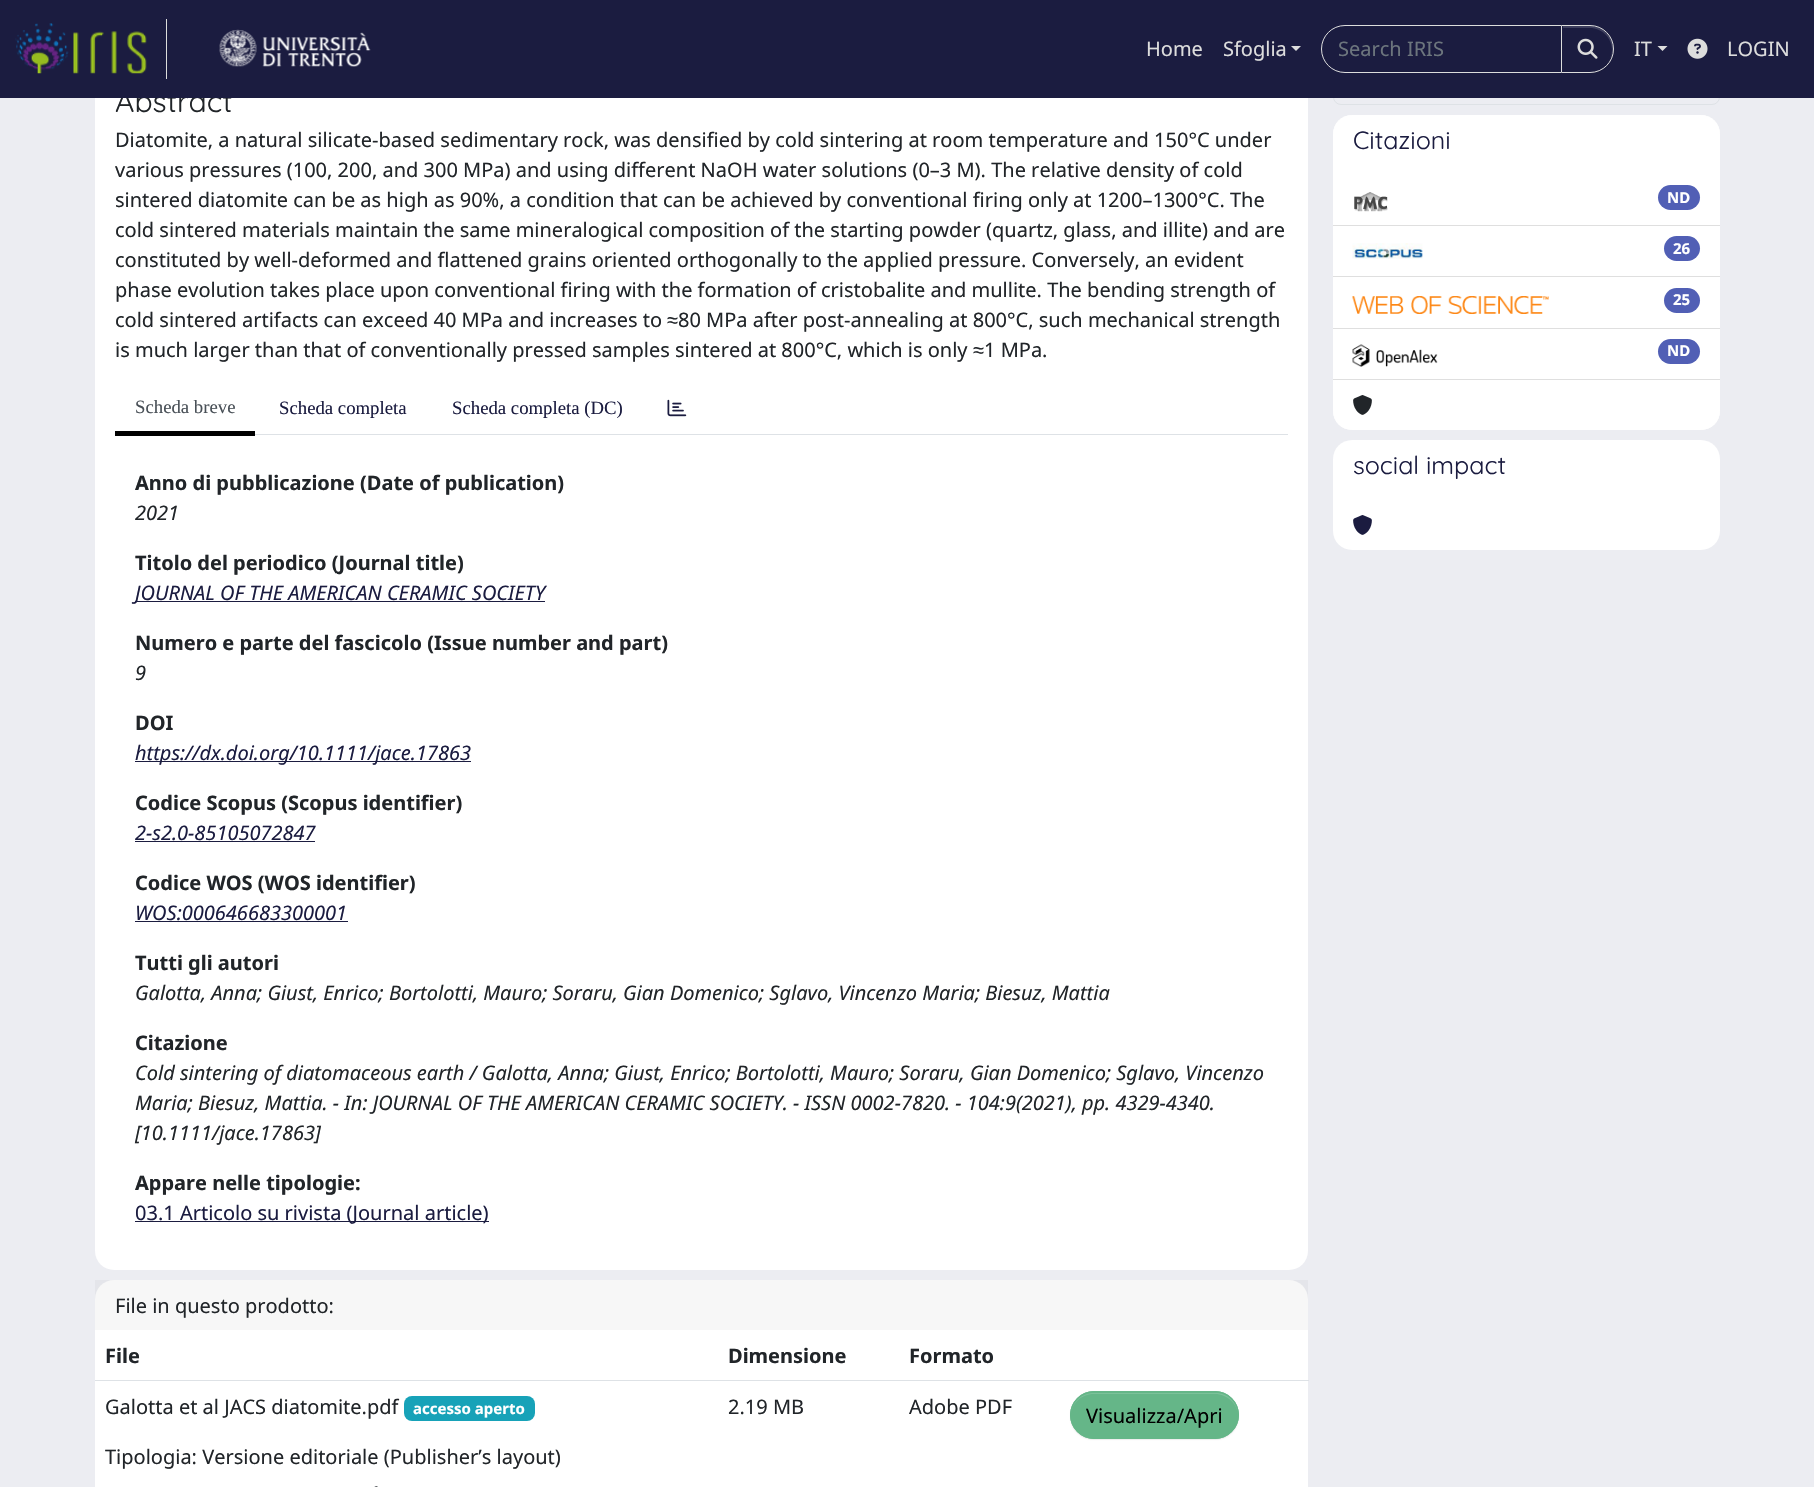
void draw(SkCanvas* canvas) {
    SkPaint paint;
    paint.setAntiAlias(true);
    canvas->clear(0xFFECEDF2);
    paint.setColor(0xFFFFFFFF);
    canvas->drawRoundRect(SkRect::MakeXYWH(95, -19, 1213, 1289), 19, 19, paint);
    SkFont font1(fontMgr->matchFamilyStyle("Quicksand", SkFontStyle::Normal()), 30);
    font1.setSubpixel(true);
    paint.setColor(0xFF212529);
    canvas->drawString("Abstract", 115, 112, font1, paint);
    paint.setStyle(SkPaint::kStroke_Style);
    paint.setStrokeWidth(1);
    paint.setColor(0xFFDEE2E6);
    canvas->drawRoundRect(SkRect::MakeXYWH(1333.5f, -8.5f, 386, 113), 7.5f, 7.5f, paint);
    paint.setStyle(SkPaint::kFill_Style);
    paint.setColor(0xFF1B1C40);
    canvas->drawRect(SkRect::MakeXYWH(0, 0, 1814, 98), paint);
    paint.setColor(0xFFDDDDDD);
    canvas->drawRect(SkRect::MakeXYWH(166, 19, 1, 60), paint);
    canvas->drawImageRect(SkImages::DeferredFromEncodedData(SkData::MakeFromFileName("img1.png")), SkRect::MakeXYWH(15, 23, 132, 51), SkSamplingOptions());
    canvas->drawImageRect(SkImages::DeferredFromEncodedData(SkData::MakeFromFileName("img2.png")), SkRect::MakeXYWH(219, 29, 152, 38), SkSamplingOptions());
    SkFont font2(fontMgr->matchFamilyStyle("Noto Sans", SkFontStyle::Normal()), 20);
    font2.setSubpixel(true);
    canvas->drawString("Home", 1146, 56, font2, paint);
    canvas->drawString("Sfoglia", 1223, 56, font2, paint);
    canvas->drawPath(SkPathBuilder().moveTo(1291, 46).lineTo(1301, 46).lineTo(1296, 51).close().detach(), paint);
    paint.setStyle(SkPaint::kStroke_Style);
    canvas->drawPath(SkPathBuilder().moveTo(1345, 25.5f).lineTo(1562.5f, 25.5f).lineTo(1562.5f, 72.5f).lineTo(1345, 72.5f).cubicTo(1332, 72.5f, 1321.5f, 62, 1321.5f, 49).cubicTo(1321.5f, 36, 1332, 25.5f, 1345, 25.5f).close().detach(), paint);
    paint.setStyle(SkPaint::kFill_Style);
    paint.setColor(0xFF6C757D);
    canvas->drawString("Search IRIS", 1338, 56, font2, paint);
    paint.setColor(0x12000000);
    paint.setMaskFilter(SkMaskFilter::MakeBlur(kNormal_SkBlurStyle, 0.5f));
    canvas->drawRoundRect(SkRect::MakeXYWH(1561, 26, 53, 48), 24, 24, paint);
    paint.setMaskFilter(nullptr);
    paint.setColor(0xFF1B1C40);
    canvas->drawPath(SkPathBuilder().moveTo(1561, 25).lineTo(1590, 25).cubicTo(1603.5f, 25, 1614, 35.5f, 1614, 49).cubicTo(1614, 62.5f, 1603.5f, 73, 1590, 73).lineTo(1561, 73).close().detach(), paint);
    paint.setColor(0xFF3D3E5D);
    canvas->drawPath(SkPathBuilder().moveTo(1563, 26).lineTo(1563, 28).lineTo(1590, 28).cubicTo(1602, 28, 1612, 38, 1612, 50).cubicTo(1612, 55, 1610, 60, 1607, 63).cubicTo(1620, 49, 1610, 26, 1590, 26).close().detach(), paint);
    paint.setStyle(SkPaint::kStroke_Style);
    paint.setColor(0xFFDDDDDD);
    canvas->drawPath(SkPathBuilder().moveTo(1561.5f, 25.5f).lineTo(1590, 25.5f).cubicTo(1603, 25.5f, 1613.5f, 36, 1613.5f, 49).cubicTo(1613.5f, 62, 1603, 72.5f, 1590, 72.5f).lineTo(1561.5f, 72.5f).close().detach(), paint);
    canvas->drawImageRect(SkImages::DeferredFromEncodedData(SkData::MakeFromFileName("img3.png")), SkRect::MakeXYWH(1577, 38, 21, 21), SkSamplingOptions());
    paint.setStyle(SkPaint::kFill_Style);
    canvas->drawString("IT", 1634, 56, font2, paint);
    canvas->drawPath(SkPathBuilder().moveTo(1657.5f, 46).lineTo(1667.5f, 46).lineTo(1662.5f, 51).close().detach(), paint);
    canvas->drawImageRect(SkImages::DeferredFromEncodedData(SkData::MakeFromFileName("img4.png")), SkRect::MakeXYWH(1687, 38, 21, 21), SkSamplingOptions());
    canvas->drawString("LOGIN", 1727, 56, font2, paint);
    paint.setColor(0xFF212529);
    canvas->drawString("Diatomite, a natural silicate-based sedimentary rock, was densified by cold sintering at room temperature and 150°C under", 115, 147, font2, paint);
    canvas->drawString("various pressures (100, 200, and 300 MPa) and using different NaOH water solutions (0–3 M). The relative density of cold", 115, 177, font2, paint);
    canvas->drawString("sintered diatomite can be as high as 90%, a condition that can be achieved by conventional firing only at 1200–1300°C. The", 115, 207, font2, paint);
    canvas->drawString("cold sintered materials maintain the same mineralogical composition of the starting powder (quartz, glass, and illite) and are", 115, 237, font2, paint);
    canvas->drawString("constituted by well-deformed and flattened grains oriented orthogonally to the applied pressure. Conversely, an evident", 115, 267, font2, paint);
    canvas->drawString("phase evolution takes place upon conventional firing with the formation of cristobalite and mullite. The bending strength of", 115, 297, font2, paint);
    canvas->drawString("cold sintered artifacts can exceed 40 MPa and increases to", 115, 327, font2, paint);
    SkFont font3(fontMgr->matchFamilyStyle("Liberation Sans", SkFontStyle::Normal()), 20);
    font3.setSubpixel(true);
    canvas->drawString("≈", 667, 327, font3, paint);
    canvas->drawString("80 MPa after post-annealing at 800°C, such mechanical strength", 678, 327, font2, paint);
    canvas->drawString("is much larger than that of conventionally pressed samples sintered at 800°C, which is only", 115, 357, font2, paint);
    canvas->drawString("≈", 973, 357, font3, paint);
    canvas->drawString("1 MPa.", 984, 357, font2, paint);
    paint.setColor(0xFFDEE2E6);
    canvas->drawRect(SkRect::MakeXYWH(255, 434, 1033, 1), paint);
    paint.setColor(0xFF000000);
    canvas->drawRect(SkRect::MakeXYWH(115, 431, 140, 5), paint);
    SkFont font4(fontMgr->matchFamilyStyle("Liberation Serif", SkFontStyle::Normal()), 18.75f);
    font4.setSubpixel(true);
    paint.setColor(0xFF495057);
    canvas->drawString("Scheda breve", 135, 413, font4, paint);
    paint.setColor(0xFF1B1C40);
    canvas->drawString("Scheda completa", 279, 414, font4, paint);
    canvas->drawString("Scheda completa (DC)", 452, 414, font4, paint);
    canvas->drawImageRect(SkImages::DeferredFromEncodedData(SkData::MakeFromFileName("img5.png")), SkRect::MakeXYWH(667, 399, 20, 18), SkSamplingOptions());
    SkFont font5(fontMgr->matchFamilyStyle("Noto Sans", SkFontStyle::Bold()), 20);
    font5.setSubpixel(true);
    paint.setColor(0xFF212529);
    canvas->drawString("Anno di pubblicazione (Date of publication)", 135, 490, font5, paint);
    SkFont font6(fontMgr->matchFamilyStyle("Noto Sans", SkFontStyle::Italic()), 20);
    font6.setSubpixel(true);
    canvas->drawString("2021", 135, 520, font6, paint);
    canvas->drawString("Titolo del periodico (Journal title)", 135, 570, font5, paint);
    paint.setColor(0xFF1B1C40);
    canvas->drawRect(SkRect::MakeXYWH(135, 601, 410, 1), paint);
    canvas->drawString("JOURNAL OF THE AMERICAN CERAMIC SOCIETY", 135, 600, font6, paint);
    paint.setColor(0xFF212529);
    canvas->drawString("Numero e parte del fascicolo (Issue number and part)", 135, 650, font5, paint);
    canvas->drawString("9", 135, 680, font6, paint);
    canvas->drawString("DOI", 135, 730, font5, paint);
    paint.setColor(0xFF1B1C40);
    canvas->drawRect(SkRect::MakeXYWH(135, 761, 336, 1), paint);
    canvas->drawString("https://dx.doi.org/10.1111/jace.17863", 135, 760, font6, paint);
    paint.setColor(0xFF212529);
    canvas->drawString("Codice Scopus (Scopus identifier)", 135, 810, font5, paint);
    paint.setColor(0xFF1B1C40);
    canvas->drawString("2-s2.0-85105072847", 135, 840, font6, paint);
    canvas->drawRect(SkRect::MakeXYWH(135, 841, 180, 1), paint);
    paint.setColor(0xFF212529);
    canvas->drawString("Codice WOS (WOS identifier)", 135, 890, font5, paint);
    paint.setColor(0xFF1B1C40);
    canvas->drawString("WOS:000646683300001", 135, 920, font6, paint);
    canvas->drawRect(SkRect::MakeXYWH(135, 921, 213, 1), paint);
    paint.setColor(0xFF212529);
    canvas->drawString("Tutti gli autori", 135, 970, font5, paint);
    canvas->drawString("Galotta, Anna; Giust, Enrico; Bortolotti, Mauro; Soraru, Gian Domenico; Sglavo, Vincenzo Maria; Biesuz, Mattia", 135, 1000, font6, paint);
    canvas->drawString("Citazione", 135, 1050, font5, paint);
    canvas->drawString("Cold sintering of diatomaceous earth / Galotta, Anna; Giust, Enrico; Bortolotti, Mauro; Soraru, Gian Domenico; Sglavo, Vincenzo", 135, 1080, font6, paint);
    canvas->drawString("Maria; Biesuz, Mattia. - In: JOURNAL OF THE AMERICAN CERAMIC SOCIETY. - ISSN 0002-7820. - 104:9(2021), pp. 4329-4340.", 135, 1110, font6, paint);
    canvas->drawString("[10.1111/jace.17863]", 135, 1140, font6, paint);
    canvas->drawString("Appare nelle tipologie:", 135, 1190, font5, paint);
    paint.setColor(0xFF1B1C40);
    canvas->drawRect(SkRect::MakeXYWH(135, 1221, 354, 1), paint);
    canvas->drawString("03.1 Articolo su rivista (Journal article)", 135, 1220, font2, paint);
    paint.setColor(0xFFFFFFFF);
    canvas->drawRoundRect(SkRect::MakeXYWH(95, 1280, 1213, 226), 19, 19, paint);
    paint.setColor(0x08000000);
    canvas->drawRect(SkRect::MakeXYWH(95, 1280, 1213, 50), paint);
    paint.setColor(0xFF212529);
    canvas->drawString("File in questo prodotto:", 115, 1313, font2, paint);
    canvas->drawString("File", 105, 1363, font5, paint);
    canvas->drawString("Dimensione", 728, 1363, font5, paint);
    canvas->drawString("Formato", 909, 1363, font5, paint);
    paint.setColor(0xFFDEE2E6);
    canvas->drawRect(SkRect::MakeXYWH(95, 1380, 1214, 1), paint);
    paint.setColor(0xFF212529);
    canvas->drawString("Galotta et al JACS diatomite.pdf", 105, 1414, font2, paint);
    paint.setColor(0xFF17A2B8);
    canvas->drawRoundRect(SkRect::MakeXYWH(404, 1396, 131, 25), 8, 8, paint);
    SkFont font7(fontMgr->matchFamilyStyle("Noto Sans", SkFontStyle::Bold()), 15);
    font7.setSubpixel(true);
    paint.setColor(0xFFFFFFFF);
    canvas->drawString("accesso aperto", 413, 1414, font7, paint);
    paint.setColor(0xFF212529);
    canvas->drawString("Tipologia: Versione editoriale (Publisher’s layout)", 105, 1464, font2, paint);
    canvas->drawImageRect(SkImages::DeferredFromEncodedData(SkData::MakeFromFileName("img6.png")), SkRect::MakeXYWH(374, 1486, 4, 1), SkSamplingOptions());
    canvas->drawString("2.19 MB", 728, 1414, font2, paint);
    canvas->drawString("Adobe PDF", 909, 1414, font2, paint);
    paint.setColor(0x12000000);
    paint.setMaskFilter(SkMaskFilter::MakeBlur(kNormal_SkBlurStyle, 0.5f));
    canvas->drawRoundRect(SkRect::MakeXYWH(1070, 1393, 169, 47), 23.5f, 23.5f, paint);
    paint.setMaskFilter(nullptr);
    paint.setColor(0xFF65B688);
    canvas->drawRoundRect(SkRect::MakeXYWH(1070, 1391, 169, 48), 24, 24, paint);
    paint.setColor(0xFF7CC19A);
    canvas->drawPath(SkPathBuilder().moveTo(1094, 1394).lineTo(1215, 1394).cubicTo(1227, 1394, 1238, 1404, 1238, 1416).cubicTo(1238, 1403, 1228, 1393, 1216, 1393).lineTo(1094, 1393).cubicTo(1081, 1393, 1071, 1403, 1071, 1416).cubicTo(1071, 1404, 1081, 1394, 1094, 1394).close().detach(), paint);
    paint.setStyle(SkPaint::kStroke_Style);
    paint.setColor(0xFF65B688);
    canvas->drawRoundRect(SkRect::MakeXYWH(1070.5f, 1391.5f, 168, 47), 23.5f, 23.5f, paint);
    paint.setStyle(SkPaint::kFill_Style);
    paint.setColor(0xFF000000);
    canvas->drawString("Visualizza/Apri", 1086, 1423, font2, paint);
    paint.setColor(0xFFFFFFFF);
    canvas->drawRoundRect(SkRect::MakeXYWH(1333, 115, 387, 315), 19, 19, paint);
    canvas->drawPath(SkPathBuilder().moveTo(1352, 115).lineTo(1701, 115).cubicTo(1711.5f, 115, 1720, 123.5f, 1720, 134).lineTo(1720, 175).lineTo(1333, 175).lineTo(1333, 134).cubicTo(1333, 123.5f, 1341.5f, 115, 1352, 115).close().detach(), paint);
    SkFont font8(fontMgr->matchFamilyStyle("Quicksand", SkFontStyle::Normal()), 25);
    font8.setSubpixel(true);
    paint.setColor(0xFF1B1C40);
    canvas->drawString("Citazioni", 1353, 149, font8, paint);
    paint.setColor(0xFFDFDFDF);
    canvas->drawRect(SkRect::MakeXYWH(1333, 225, 387, 1), paint);
    canvas->drawImageRect(SkImages::DeferredFromEncodedData(SkData::MakeFromFileName("img7.png")), SkRect::MakeXYWH(1354, 192, 34, 20), SkSamplingOptions());
    paint.setColor(0xFF515FB5);
    canvas->drawRoundRect(SkRect::MakeXYWH(1658, 185, 42, 25), 12.5f, 12.5f, paint);
    paint.setColor(0xFFFFFFFF);
    canvas->drawString("ND", 1667, 203, font7, paint);
    paint.setColor(0xFFDFDFDF);
    canvas->drawRect(SkRect::MakeXYWH(1333, 276, 387, 1), paint);
    canvas->drawImageRect(SkImages::DeferredFromEncodedData(SkData::MakeFromFileName("img8.png")), SkRect::MakeXYWH(1352, 243, 71, 16), SkSamplingOptions());
    paint.setColor(0xFF515FB5);
    canvas->drawRoundRect(SkRect::MakeXYWH(1664, 236, 36, 25), 12.5f, 12.5f, paint);
    paint.setColor(0xFFFFFFFF);
    canvas->drawString("26", 1673, 254, font7, paint);
    paint.setColor(0xFFDFDFDF);
    canvas->drawRect(SkRect::MakeXYWH(1333, 328, 387, 1), paint);
    canvas->drawImageRect(SkImages::DeferredFromEncodedData(SkData::MakeFromFileName("img9.png")), SkRect::MakeXYWH(1352, 296, 197, 18), SkSamplingOptions());
    paint.setColor(0xFF515FB5);
    canvas->drawRoundRect(SkRect::MakeXYWH(1664, 288, 36, 25), 12.5f, 12.5f, paint);
    paint.setColor(0xFFFFFFFF);
    canvas->drawString("25", 1673, 305, font7, paint);
    paint.setColor(0xFFDFDFDF);
    canvas->drawRect(SkRect::MakeXYWH(1333, 379, 387, 1), paint);
    canvas->drawImageRect(SkImages::DeferredFromEncodedData(SkData::MakeFromFileName("img10.png")), SkRect::MakeXYWH(1352, 344, 86, 23), SkSamplingOptions());
    paint.setColor(0xFF515FB5);
    canvas->drawRoundRect(SkRect::MakeXYWH(1658, 339, 42, 25), 12.5f, 12.5f, paint);
    paint.setColor(0xFFFFFFFF);
    canvas->drawString("ND", 1667, 356, font7, paint);
    canvas->drawPath(SkPathBuilder().moveTo(1333, 380).lineTo(1720, 380).lineTo(1720, 411).cubicTo(1720, 421.5f, 1711.5f, 430, 1701, 430).lineTo(1352, 430).cubicTo(1341.5f, 430, 1333, 421.5f, 1333, 411).close().detach(), paint);
    canvas->drawImageRect(SkImages::DeferredFromEncodedData(SkData::MakeFromFileName("img11.png")), SkRect::MakeXYWH(1353, 395, 19, 20), SkSamplingOptions());
    canvas->drawPath(SkPathBuilder().moveTo(1352, 440).lineTo(1701, 440).cubicTo(1711.5f, 440, 1720, 448.5f, 1720, 459).lineTo(1720, 500).lineTo(1333, 500).lineTo(1333, 459).cubicTo(1333, 448.5f, 1341.5f, 440, 1352, 440).close().detach(), paint);
    paint.setColor(0xFF1B1C40);
    canvas->drawString("social impact", 1353, 474, font8, paint);
    paint.setColor(0xFFFFFFFF);
    canvas->drawPath(SkPathBuilder().moveTo(1333, 500).lineTo(1720, 500).lineTo(1720, 531).cubicTo(1720, 541.5f, 1711.5f, 550, 1701, 550).lineTo(1352, 550).cubicTo(1341.5f, 550, 1333, 541.5f, 1333, 531).close().detach(), paint);
    canvas->drawImageRect(SkImages::DeferredFromEncodedData(SkData::MakeFromFileName("img12.png")), SkRect::MakeXYWH(1353, 515, 19, 20), SkSamplingOptions());
}
